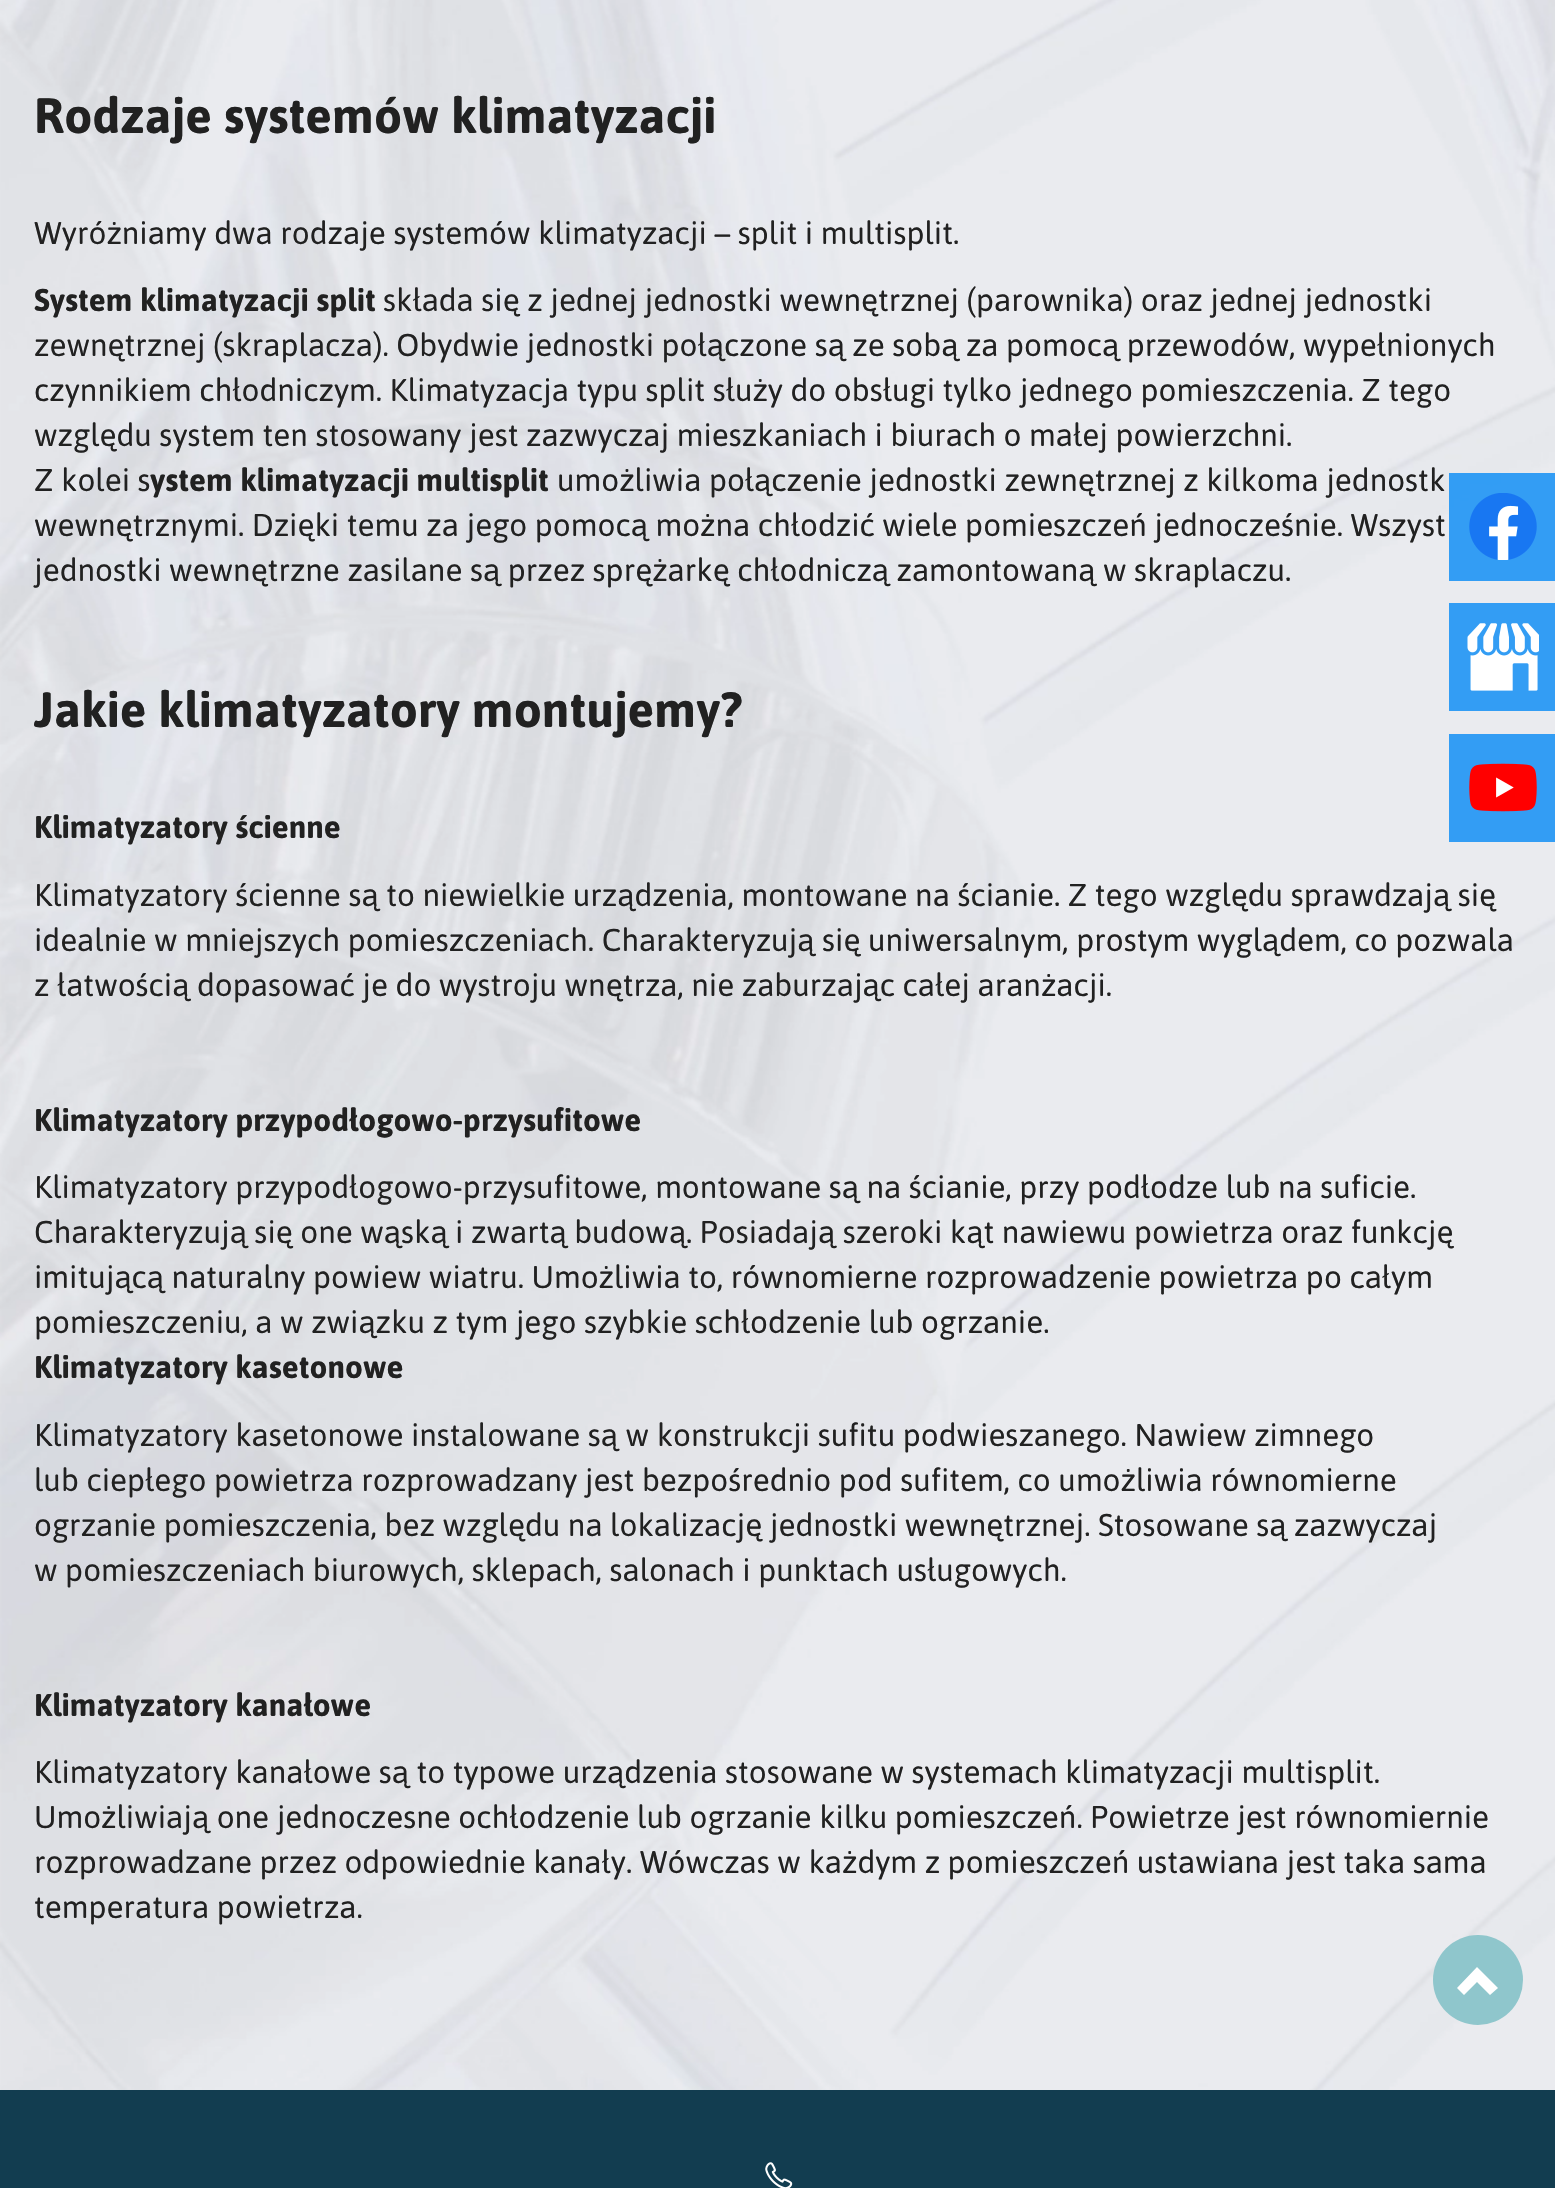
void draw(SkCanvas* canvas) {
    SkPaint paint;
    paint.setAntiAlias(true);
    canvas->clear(0xFFFFFFFF);
    canvas->drawImageRect(SkImages::DeferredFromEncodedData(SkData::MakeFromFileName("img1.png")), SkRect::MakeXYWH(0, 0, 1555, 2090), SkSamplingOptions());
    SkFont font1(fontMgr->matchFamilyStyle("Asap", SkFontStyle::Bold()), 49.5f);
    font1.setSubpixel(true);
    paint.setColor(0xFF212121);
    canvas->drawString("Rodzaje systemów klimatyzacji", 34, 133, font1, paint);
    SkFont font2(fontMgr->matchFamilyStyle("Asap", SkFontStyle::Normal()), 31.5f);
    font2.setSubpixel(true);
    canvas->drawString("Wyróżniamy dwa rodzaje systemów klimatyzacji – split i multisplit.", 34, 244, font2, paint);
    SkFont font3(fontMgr->matchFamilyStyle("Asap", SkFontStyle::Bold()), 31.5f);
    font3.setSubpixel(true);
    canvas->drawString("System klimatyzacji split", 34, 311, font3, paint);
    canvas->drawString("składa się z jednej jednostki wewnętrznej (parownika) oraz jednej jednostki", 383, 311, font2, paint);
    canvas->drawString("zewnętrznej (skraplacza). Obydwie jednostki połączone są ze sobą za pomocą przewodów, wypełnionych", 34, 356, font2, paint);
    canvas->drawString("czynnikiem chłodniczym. Klimatyzacja typu split służy do obsługi tylko jednego pomieszczenia. Z tego", 34, 401, font2, paint);
    canvas->drawString("względu system ten stosowany jest zazwyczaj mieszkaniach i biurach o małej powierzchni.", 34, 446, font2, paint);
    canvas->drawString("Z kolei s", 34, 491, font2, paint);
    canvas->drawString("ystem klimatyzacji multisplit", 150, 491, font3, paint);
    canvas->drawString("umożliwia połączenie jednostki zewnętrznej z kilkoma jednostk", 557, 491, font2, paint);
    canvas->drawString("wewnętrznymi. Dzięki temu za jego pomocą można chłodzić wiele pomieszczeń jednocześnie. Wszyst", 34, 536, font2, paint);
    canvas->drawString("jednostki wewnętrzne zasilane są przez sprężarkę chłodniczą zamontowaną w skraplaczu.", 34, 581, font2, paint);
    canvas->drawString("Jakie klimatyzatory montujemy?", 34, 727, font1, paint);
    canvas->drawString("Klimatyzatory ścienne", 34, 838, font3, paint);
    canvas->drawString("Klimatyzatory ścienne są to niewielkie urządzenia, montowane na ścianie. Z tego względu sprawdzają się", 34, 906, font2, paint);
    canvas->drawString("idealnie w mniejszych pomieszczeniach. Charakteryzują się uniwersalnym, prostym wyglądem, co pozwala", 34, 951, font2, paint);
    canvas->drawString("z łatwością dopasować je do wystroju wnętrza, nie zaburzając całej aranżacji.", 34, 996, font2, paint);
    canvas->drawString("Klimatyzatory przypodłogowo-przysufitowe", 34, 1131, font3, paint);
    canvas->drawString("Klimatyzatory przypodłogowo-przysufitowe, montowane są na ścianie, przy podłodze lub na suficie.", 34, 1198, font2, paint);
    canvas->drawString("Charakteryzują się one wąską i zwartą budową. Posiadają szeroki kąt nawiewu powietrza oraz funkcję", 34, 1243, font2, paint);
    canvas->drawString("imitującą naturalny powiew wiatru. Umożliwia to, równomierne rozprowadzenie powietrza po całym", 34, 1288, font2, paint);
    canvas->drawString("pomieszczeniu, a w związku z tym jego szybkie schłodzenie lub ogrzanie.", 34, 1333, font2, paint);
    canvas->drawString("Klimatyzatory kasetonowe", 34, 1378, font3, paint);
    canvas->drawString("Klimatyzatory kasetonowe instalowane są w konstrukcji sufitu podwieszanego. Nawiew zimnego", 34, 1446, font2, paint);
    canvas->drawString("lub ciepłego powietrza rozprowadzany jest bezpośrednio pod sufitem, co umożliwia równomierne", 34, 1491, font2, paint);
    canvas->drawString("ogrzanie pomieszczenia, bez względu na lokalizację jednostki wewnętrznej. Stosowane są zazwyczaj", 34, 1536, font2, paint);
    canvas->drawString("w pomieszczeniach biurowych, sklepach, salonach i punktach usługowych.", 34, 1581, font2, paint);
    canvas->drawString("Klimatyzatory kanałowe", 34, 1716, font3, paint);
    canvas->drawString("Klimatyzatory kanałowe są to typowe urządzenia stosowane w systemach klimatyzacji multisplit.", 34, 1783, font2, paint);
    canvas->drawString("Umożliwiają one jednoczesne ochłodzenie lub ogrzanie kilku pomieszczeń. Powietrze jest równomiernie", 34, 1828, font2, paint);
    canvas->drawString("rozprowadzane przez odpowiednie kanały. Wówczas w każdym z pomieszczeń ustawiana jest taka sama", 34, 1873, font2, paint);
    canvas->drawString("temperatura powietrza.", 34, 1918, font2, paint);
    paint.setColor(0xCC0589F5);
    canvas->drawRect(SkRect::MakeXYWH(1449, 473, 106, 108), paint);
    canvas->drawImageRect(SkImages::DeferredFromEncodedData(SkData::MakeFromFileName("img2.png")), SkRect::MakeXYWH(1469, 493, 68, 67), SkSamplingOptions());
    paint.setColor(0xFF339DF4);
    canvas->drawRect(SkRect::MakeXYWH(1449, 603, 106, 108), paint);
    canvas->drawImageRect(SkImages::DeferredFromEncodedData(SkData::MakeFromFileName("img3.png")), SkRect::MakeXYWH(1467, 623, 72, 68), SkSamplingOptions());
    canvas->drawRect(SkRect::MakeXYWH(1449, 734, 106, 108), paint);
    canvas->drawImageRect(SkImages::DeferredFromEncodedData(SkData::MakeFromFileName("img4.png")), SkRect::MakeXYWH(1469, 763, 68, 49), SkSamplingOptions());
    paint.setColor(0xFF8FC6CC);
    canvas->drawCircle(1478, 1980, 45, paint);
    paint.setColor(0xFFFFFFFF);
    canvas->drawPath(SkPathBuilder().moveTo(1498, 1988).lineTo(1490, 1995).lineTo(1477, 1982).lineTo(1464, 1995).lineTo(1457, 1988).lineTo(1477, 1967).close().detach(), paint);
    paint.setColor(0xFF123D50);
    canvas->drawRect(SkRect::MakeXYWH(0, 2090, 1555, 98), paint);
    canvas->drawImageRect(SkImages::DeferredFromEncodedData(SkData::MakeFromFileName("img5.png")), SkRect::MakeXYWH(765, 2162, 28, 26), SkSamplingOptions());
}
